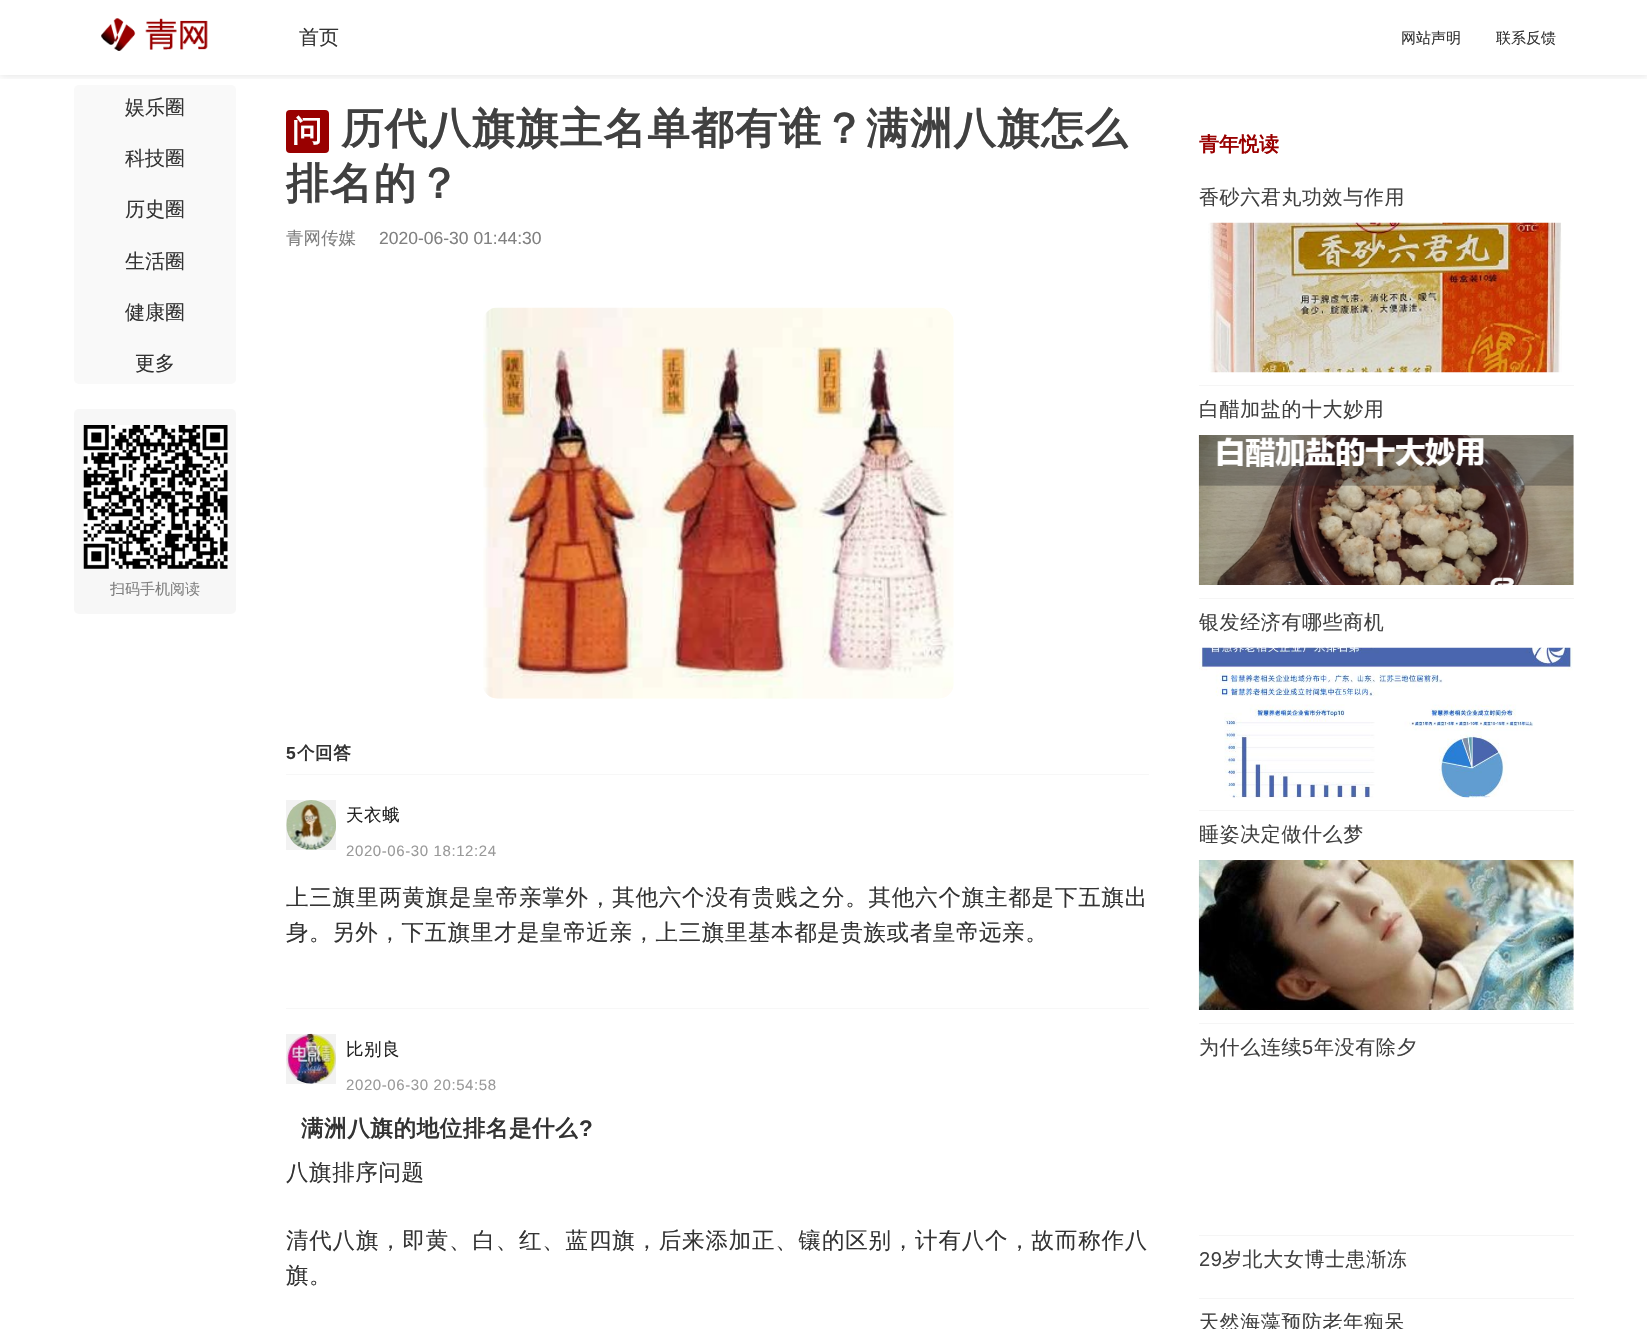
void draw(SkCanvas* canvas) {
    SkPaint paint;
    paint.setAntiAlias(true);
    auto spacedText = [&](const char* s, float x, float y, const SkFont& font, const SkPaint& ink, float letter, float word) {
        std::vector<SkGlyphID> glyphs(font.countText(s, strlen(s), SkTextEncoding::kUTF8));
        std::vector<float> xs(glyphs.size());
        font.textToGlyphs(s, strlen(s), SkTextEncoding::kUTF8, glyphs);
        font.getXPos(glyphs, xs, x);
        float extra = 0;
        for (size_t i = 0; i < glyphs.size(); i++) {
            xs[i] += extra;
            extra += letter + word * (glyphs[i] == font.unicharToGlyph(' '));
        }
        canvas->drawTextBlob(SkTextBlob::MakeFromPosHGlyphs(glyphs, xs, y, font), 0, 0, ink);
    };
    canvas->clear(0xFFFFFFFF);
    canvas->save();
    canvas->clipRect(SkRect::MakeXYWH(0, 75, 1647, 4));
    paint.setColor(0x1A000000);
    paint.setMaskFilter(SkMaskFilter::MakeBlur(kNormal_SkBlurStyle, 4));
    canvas->drawRect(SkRect::MakeXYWH(0, 1, 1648, 75), paint);
    paint.setMaskFilter(nullptr);
    canvas->restore();
    SkFont font1(fontMgr->matchFamilyStyle("WenQuanYi Zen Hei", SkFontStyle(500, SkFontStyle::kNormal_Width, SkFontStyle::kUpright_Slant)), 20);
    font1.setSubpixel(true);
    paint.setColor(0xFF333333);
    canvas->drawString("首页", 299, 44, font1, paint);
    SkFont font2(fontMgr->matchFamilyStyle("WenQuanYi Zen Hei", SkFontStyle(500, SkFontStyle::kNormal_Width, SkFontStyle::kUpright_Slant)), 15);
    font2.setSubpixel(true);
    canvas->drawString("网站声明", 1401, 43, font2, paint);
    canvas->drawString("联系反馈", 1496, 43, font2, paint);
    canvas->drawImageRect(SkImages::DeferredFromEncodedData(SkData::MakeFromFileName("img1.png")), SkRect::MakeXYWH(101, 18, 107, 33), SkSamplingOptions());
    paint.setColor(0xFFF9F9F9);
    canvas->drawRoundRect(SkRect::MakeXYWH(74, 85, 162, 299), 5, 5, paint);
    paint.setColor(0xFF333333);
    canvas->drawString("娱乐圈", 125, 114, font1, paint);
    canvas->drawString("科技圈", 125, 165, font1, paint);
    canvas->drawString("历史圈", 125, 216, font1, paint);
    canvas->drawString("生活圈", 125, 268, font1, paint);
    canvas->drawString("健康圈", 125, 319, font1, paint);
    canvas->drawString("更多", 135, 370, font1, paint);
    paint.setColor(0xFFF7F7F7);
    canvas->drawRoundRect(SkRect::MakeXYWH(74, 409, 162, 205), 5, 5, paint);
    canvas->drawImageRect(SkImages::DeferredFromEncodedData(SkData::MakeFromFileName("img2.png")), SkRect::MakeXYWH(83, 425, 145, 144), SkSamplingOptions());
    paint.setColor(0xFF808080);
    canvas->drawString("扫码手机阅读", 110, 594, font2, paint);
    paint.setColor(0xFF990000);
    canvas->drawRoundRect(SkRect::MakeXYWH(286, 110, 43, 43), 4, 4, paint);
    SkFont font3(fontMgr->matchFamilyStyle("WenQuanYi Zen Hei", SkFontStyle::Bold()), 30);
    font3.setSubpixel(true);
    paint.setColor(0xFFFFFFFF);
    spacedText("问", 292, 141, font3, paint, 1.25f, 0);
    SkFont font4(fontMgr->matchFamilyStyle("WenQuanYi Zen Hei", SkFontStyle::Bold()), 42.5f);
    font4.setSubpixel(true);
    paint.setColor(0xFF404040);
    spacedText("历代八旗旗主名单都有谁？满洲八旗怎么", 341, 143, font4, paint, 1.25f, 0);
    spacedText("排名的？", 286, 198, font4, paint, 1.25f, 0);
    SkFont font5(fontMgr->matchFamilyStyle("WenQuanYi Zen Hei", SkFontStyle(500, SkFontStyle::kNormal_Width, SkFontStyle::kUpright_Slant)), 17.5f);
    font5.setSubpixel(true);
    paint.setColor(0xFF808080);
    canvas->drawString("青网传媒", 286, 244, font5, paint);
    SkFont font6(fontMgr->matchFamilyStyle("Liberation Sans", SkFontStyle::Normal()), 17.5f);
    font6.setSubpixel(true);
    canvas->drawString("2020-06-30 01:44:30", 379, 244, font6, paint);
    canvas->drawImageRect(SkImages::DeferredFromEncodedData(SkData::MakeFromFileName("img3.png")), SkRect::MakeXYWH(483, 307, 471, 392), SkSamplingOptions());
    paint.setColor(0xFFF7F7F7);
    canvas->drawRect(SkRect::MakeXYWH(286, 774, 863, 1), paint);
    SkFont font7(fontMgr->matchFamilyStyle("Liberation Sans", SkFontStyle::Bold()), 17.5f);
    font7.setSubpixel(true);
    paint.setColor(0xFF333333);
    spacedText("5", 286, 759, font7, paint, 0.6f, 0);
    SkFont font8(fontMgr->matchFamilyStyle("WenQuanYi Zen Hei", SkFontStyle::Bold()), 17.5f);
    font8.setSubpixel(true);
    spacedText("个回答", 297, 759, font8, paint, 0.6f, 0);
    paint.setColor(0xFFF7F7F7);
    canvas->drawRect(SkRect::MakeXYWH(286, 1008, 863, 1), paint);
    canvas->drawImageRect(SkImages::DeferredFromEncodedData(SkData::MakeFromFileName("img4.png")), SkRect::MakeXYWH(286, 800, 50, 50), SkSamplingOptions());
    paint.setColor(0x0D000000);
    canvas->drawRect(SkRect::MakeXYWH(286, 800, 50, 50), paint);
    paint.setColor(0xFF222222);
    spacedText("天衣蛾", 346, 821, font5, paint, 0.6f, 0);
    SkFont font9(fontMgr->matchFamilyStyle("Liberation Sans", SkFontStyle::Normal()), 15);
    font9.setSubpixel(true);
    paint.setColor(0xFF999999);
    spacedText("2020-06-30 18:12:24", 346, 856, font9, paint, 0.6f, 0);
    SkFont font10(fontMgr->matchFamilyStyle("WenQuanYi Zen Hei", SkFontStyle(500, SkFontStyle::kNormal_Width, SkFontStyle::kUpright_Slant)), 22.5f);
    font10.setSubpixel(true);
    paint.setColor(0xFF333333);
    spacedText("上三旗里两黄旗是皇帝亲掌外，其他六个没有贵贱之分。其他六个旗主都是下五旗出", 286, 905, font10, paint, 0.8f, 0);
    spacedText("身。另外，下五旗里才是皇帝近亲，上三旗里基本都是贵族或者皇帝远亲。", 286, 940, font10, paint, 0.6f, 0);
    canvas->drawImageRect(SkImages::DeferredFromEncodedData(SkData::MakeFromFileName("img5.png")), SkRect::MakeXYWH(286, 1033, 51, 51), SkSamplingOptions());
    paint.setColor(0x0D000000);
    canvas->drawRect(SkRect::MakeXYWH(286, 1034, 50, 50), paint);
    paint.setColor(0xFF222222);
    spacedText("比别良", 346, 1055, font5, paint, 0.6f, 0);
    paint.setColor(0xFF999999);
    spacedText("2020-06-30 20:54:58", 346, 1090, font9, paint, 0.6f, 0);
    SkFont font11(fontMgr->matchFamilyStyle("WenQuanYi Zen Hei", SkFontStyle::Bold()), 22.5f);
    font11.setSubpixel(true);
    paint.setColor(0xFF333333);
    spacedText("满洲八旗的地位排名是什么", 301, 1136, font11, paint, 0.6f, 0);
    SkFont font12(fontMgr->matchFamilyStyle("Liberation Sans", SkFontStyle::Bold()), 22.5f);
    font12.setSubpixel(true);
    spacedText("?", 579, 1136, font12, paint, 0.6f, 0);
    spacedText("八旗排序问题", 286, 1180, font10, paint, 0.6f, 0);
    spacedText("清代八旗，即黄、白、红、蓝四旗，后来添加正、镶的区别，计有八个，故而称作八", 286, 1248, font10, paint, 0.8f, 0);
    spacedText("旗。", 286, 1283, font10, paint, 0.6f, 0);
    SkFont font13(fontMgr->matchFamilyStyle("WenQuanYi Zen Hei", SkFontStyle::Bold()), 20);
    font13.setSubpixel(true);
    paint.setColor(0xFF990000);
    canvas->drawString("青年悦读", 1199, 151, font13, paint);
    paint.setColor(0xFFF5F5F5);
    canvas->drawRect(SkRect::MakeXYWH(1199, 385, 375, 1), paint);
    paint.setColor(0xFF404040);
    spacedText("香砂六君丸功效与作用", 1199, 204, font1, paint, 0.6f, 0);
    canvas->drawImageRect(SkImages::DeferredFromEncodedData(SkData::MakeFromFileName("img6.png")), SkRect::MakeXYWH(1208, 222, 354, 151), SkSamplingOptions());
    paint.setColor(0xFFF5F5F5);
    canvas->drawRect(SkRect::MakeXYWH(1199, 598, 375, 1), paint);
    paint.setColor(0xFF404040);
    spacedText("白醋加盐的十大妙用", 1199, 416, font1, paint, 0.6f, 0);
    canvas->drawImageRect(SkImages::DeferredFromEncodedData(SkData::MakeFromFileName("img7.png")), SkRect::MakeXYWH(1198, 435, 376, 150), SkSamplingOptions());
    paint.setColor(0xFFF5F5F5);
    canvas->drawRect(SkRect::MakeXYWH(1199, 810, 375, 1), paint);
    paint.setColor(0xFF404040);
    spacedText("银发经济有哪些商机", 1199, 629, font1, paint, 0.6f, 0);
    canvas->drawImageRect(SkImages::DeferredFromEncodedData(SkData::MakeFromFileName("img8.png")), SkRect::MakeXYWH(1199, 647, 374, 151), SkSamplingOptions());
    paint.setColor(0xFFF5F5F5);
    canvas->drawRect(SkRect::MakeXYWH(1199, 1023, 375, 1), paint);
    paint.setColor(0xFF404040);
    spacedText("睡姿决定做什么梦", 1199, 841, font1, paint, 0.6f, 0);
    canvas->drawImageRect(SkImages::DeferredFromEncodedData(SkData::MakeFromFileName("img9.png")), SkRect::MakeXYWH(1198, 860, 376, 150), SkSamplingOptions());
    paint.setColor(0xFFF5F5F5);
    canvas->drawRect(SkRect::MakeXYWH(1199, 1235, 375, 1), paint);
    paint.setColor(0xFF404040);
    spacedText("为什么连续", 1199, 1054, font1, paint, 0.6f, 0);
    SkFont font14(fontMgr->matchFamilyStyle("Liberation Sans", SkFontStyle::Normal()), 20);
    font14.setSubpixel(true);
    spacedText("5", 1302, 1054, font14, paint, 0.6f, 0);
    spacedText("年没有除夕", 1314, 1054, font1, paint, 0.6f, 0);
    paint.setColor(0xFFF5F5F5);
    canvas->drawRect(SkRect::MakeXYWH(1199, 1298, 375, 1), paint);
    paint.setColor(0xFF404040);
    spacedText("29", 1199, 1266, font14, paint, 0.6f, 0);
    spacedText("岁北大女博士患渐冻", 1222, 1266, font1, paint, 0.6f, 0);
    spacedText("天然海藻预防老年痴呆", 1199, 1329, font1, paint, 0.6f, 0);
}
